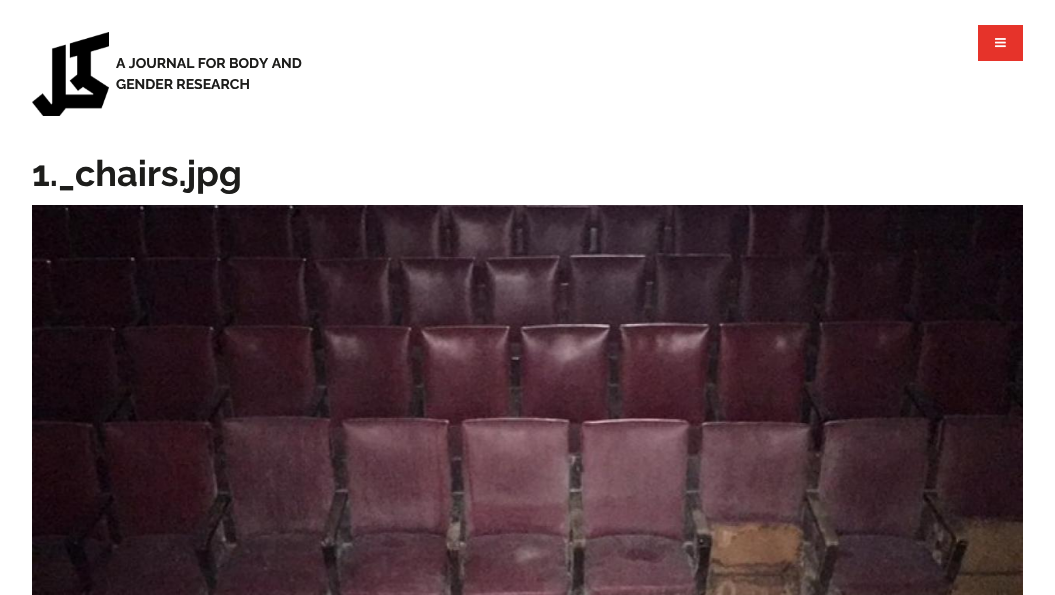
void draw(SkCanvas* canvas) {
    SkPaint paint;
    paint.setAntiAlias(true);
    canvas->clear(0xFFFFFFFF);
    paint.setColor(0xFFE6332A);
    canvas->drawRect(SkRect::MakeXYWH(978, 25, 45, 36), paint);
    canvas->drawImageRect(SkImages::DeferredFromEncodedData(SkData::MakeFromFileName("img1.png")), SkRect::MakeXYWH(995, 38, 11, 10), SkSamplingOptions());
    canvas->drawImageRect(SkImages::DeferredFromEncodedData(SkData::MakeFromFileName("img2.png")), SkRect::MakeXYWH(32, 32, 77, 84), SkSamplingOptions());
    SkFont font1(fontMgr->matchFamilyStyle("Raleway", SkFontStyle::Bold()), 14);
    font1.setSubpixel(true);
    paint.setColor(0xFF1D1D1B);
    canvas->drawString("A JOURNAL FOR BODY AND", 116, 68, font1, paint);
    canvas->drawString("GENDER RESEARCH", 116, 89, font1, paint);
    SkFont font2(fontMgr->matchFamilyStyle("Raleway", SkFontStyle::Bold()), 36);
    font2.setSubpixel(true);
    canvas->drawString("1._chairs.jpg", 32, 186, font2, paint);
    canvas->drawImageRect(SkImages::DeferredFromEncodedData(SkData::MakeFromFileName("img3.png")), SkRect::MakeXYWH(32, 205, 991, 390), SkSamplingOptions());
}
